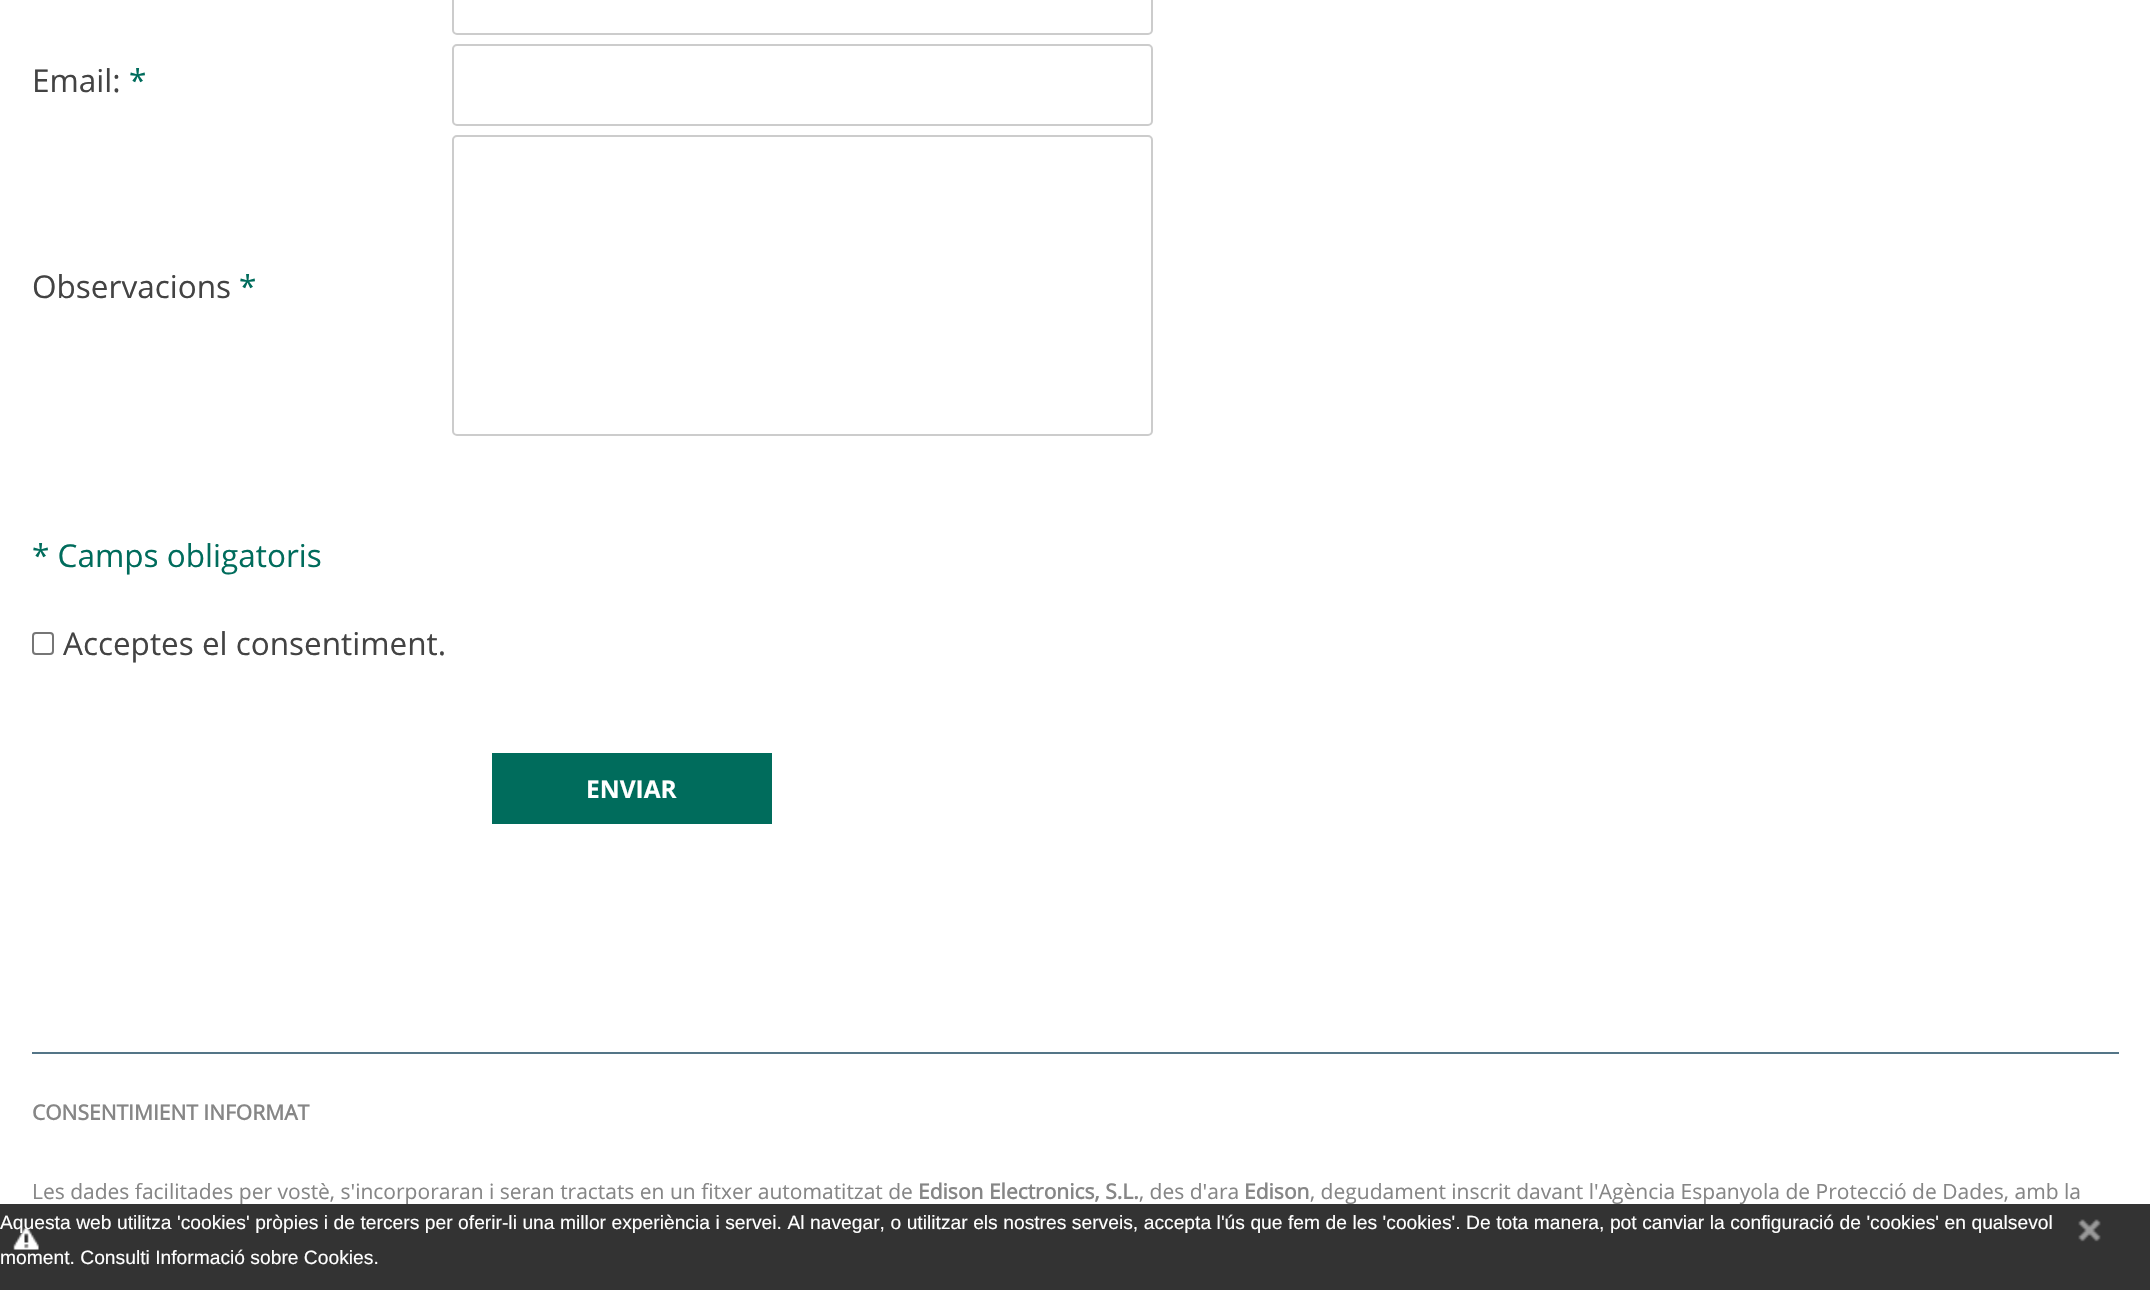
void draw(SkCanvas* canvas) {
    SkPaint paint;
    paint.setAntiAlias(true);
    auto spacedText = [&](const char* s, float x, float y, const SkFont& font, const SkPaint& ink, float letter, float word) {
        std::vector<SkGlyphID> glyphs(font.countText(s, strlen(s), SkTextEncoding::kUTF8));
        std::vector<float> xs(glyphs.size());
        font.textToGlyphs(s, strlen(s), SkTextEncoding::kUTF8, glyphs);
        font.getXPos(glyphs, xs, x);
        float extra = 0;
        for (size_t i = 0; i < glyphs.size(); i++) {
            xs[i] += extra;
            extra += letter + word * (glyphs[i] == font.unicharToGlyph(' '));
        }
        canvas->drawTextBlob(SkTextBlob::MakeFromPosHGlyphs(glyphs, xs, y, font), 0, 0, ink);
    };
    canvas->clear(0xFFFFFFFF);
    paint.setStyle(SkPaint::kStroke_Style);
    paint.setStrokeWidth(2);
    paint.setColor(0xFFCCCCCC);
    canvas->drawRoundRect(SkRect::MakeXYWH(453, -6, 699, 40), 4, 4, paint);
    SkFont font1(fontMgr->matchFamilyStyle("Open Sans", SkFontStyle::Normal()), 31.5f);
    font1.setSubpixel(true);
    paint.setStyle(SkPaint::kFill_Style);
    paint.setColor(0xFF434343);
    canvas->drawString("Email:", 32, 92, font1, paint);
    paint.setColor(0xFF006C5C);
    canvas->drawString("*", 129, 92, font1, paint);
    paint.setStyle(SkPaint::kStroke_Style);
    paint.setColor(0xFFCCCCCC);
    canvas->drawRoundRect(SkRect::MakeXYWH(453, 45, 699, 80), 4, 4, paint);
    paint.setStyle(SkPaint::kFill_Style);
    paint.setColor(0xFF434343);
    canvas->drawString("Observacions", 32, 298, font1, paint);
    paint.setColor(0xFF006C5C);
    canvas->drawString("*", 239, 298, font1, paint);
    paint.setStyle(SkPaint::kStroke_Style);
    paint.setColor(0xFFCCCCCC);
    canvas->drawRoundRect(SkRect::MakeXYWH(453, 136, 699, 299), 4, 4, paint);
    paint.setStyle(SkPaint::kFill_Style);
    paint.setColor(0xFF006C5C);
    canvas->drawString("* Camps obligatoris", 32, 567, font1, paint);
    paint.setStyle(SkPaint::kStroke_Style);
    paint.setColor(0xFF767676);
    canvas->drawRoundRect(SkRect::MakeXYWH(33, 633, 20, 21), 3, 3, paint);
    paint.setStyle(SkPaint::kFill_Style);
    paint.setColor(0xFF434343);
    canvas->drawString("Acceptes el consentiment.", 63, 655, font1, paint);
    paint.setColor(0xFF006C5C);
    canvas->drawRect(SkRect::MakeXYWH(492, 753, 280, 71), paint);
    SkFont font2(fontMgr->matchFamilyStyle("Open Sans", SkFontStyle::Bold()), 24.5f);
    font2.setSubpixel(true);
    paint.setColor(0xFFFFFFFF);
    canvas->drawString("ENVIAR", 586, 798, font2, paint);
    paint.setColor(0xFF547587);
    canvas->drawRect(SkRect::MakeXYWH(32, 1052, 2087, 2), paint);
    SkFont font3(fontMgr->matchFamilyStyle("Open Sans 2", SkFontStyle::Bold()), 21);
    font3.setSubpixel(true);
    paint.setColor(0xFF868686);
    canvas->drawString("CONSENTIMIENT INFORMAT", 32, 1120, font3, paint);
    SkFont font4(fontMgr->matchFamilyStyle("Open Sans", SkFontStyle::Normal()), 21);
    font4.setSubpixel(true);
    canvas->drawString("Les dades facilitades per vostè, s'incorporaran i seran tractats en un fitxer automatitzat de", 32, 1199, font4, paint);
    canvas->drawString("Edison Electronics, S.L.", 918, 1199, font3, paint);
    canvas->drawString(", des d'ara", 1139, 1199, font4, paint);
    canvas->drawString("Edison", 1244, 1199, font3, paint);
    canvas->drawString(", degudament inscrit davant l'Agència Espanyola de Protecció de Dades, amb la", 1310, 1199, font4, paint);
    paint.setColor(0xCC000000);
    canvas->drawRect(SkRect::MakeXYWH(0, 1204, 2150, 86), paint);
    canvas->drawImageRect(SkImages::DeferredFromEncodedData(SkData::MakeFromFileName("img1.png")), SkRect::MakeXYWH(13, 1228, 26, 22), SkSamplingOptions());
    SkFont font5(fontMgr->matchFamilyStyle("Liberation Sans", SkFontStyle::Normal()), 19.25f);
    font5.setSubpixel(true);
    paint.setColor(0xFFFFFFFF);
    spacedText("Aquesta web utilitza 'cookies' pròpies i de tercers per oferir-li una millor experiència i servei. Al navegar, o utilitzar els nostres serveis, accepta l'ús que fem de les 'cookies'. De tota manera, pot canviar la configuració de 'cookies' en qualsevol", 0, 1229, font5, paint, 0, 0.15f);
    canvas->drawImageRect(SkImages::DeferredFromEncodedData(SkData::MakeFromFileName("img2.png")), SkRect::MakeXYWH(2078, 1219, 23, 23), SkSamplingOptions());
    canvas->drawString("moment. Consulti Informació sobre Cookies.", 0, 1264, font5, paint);
}
